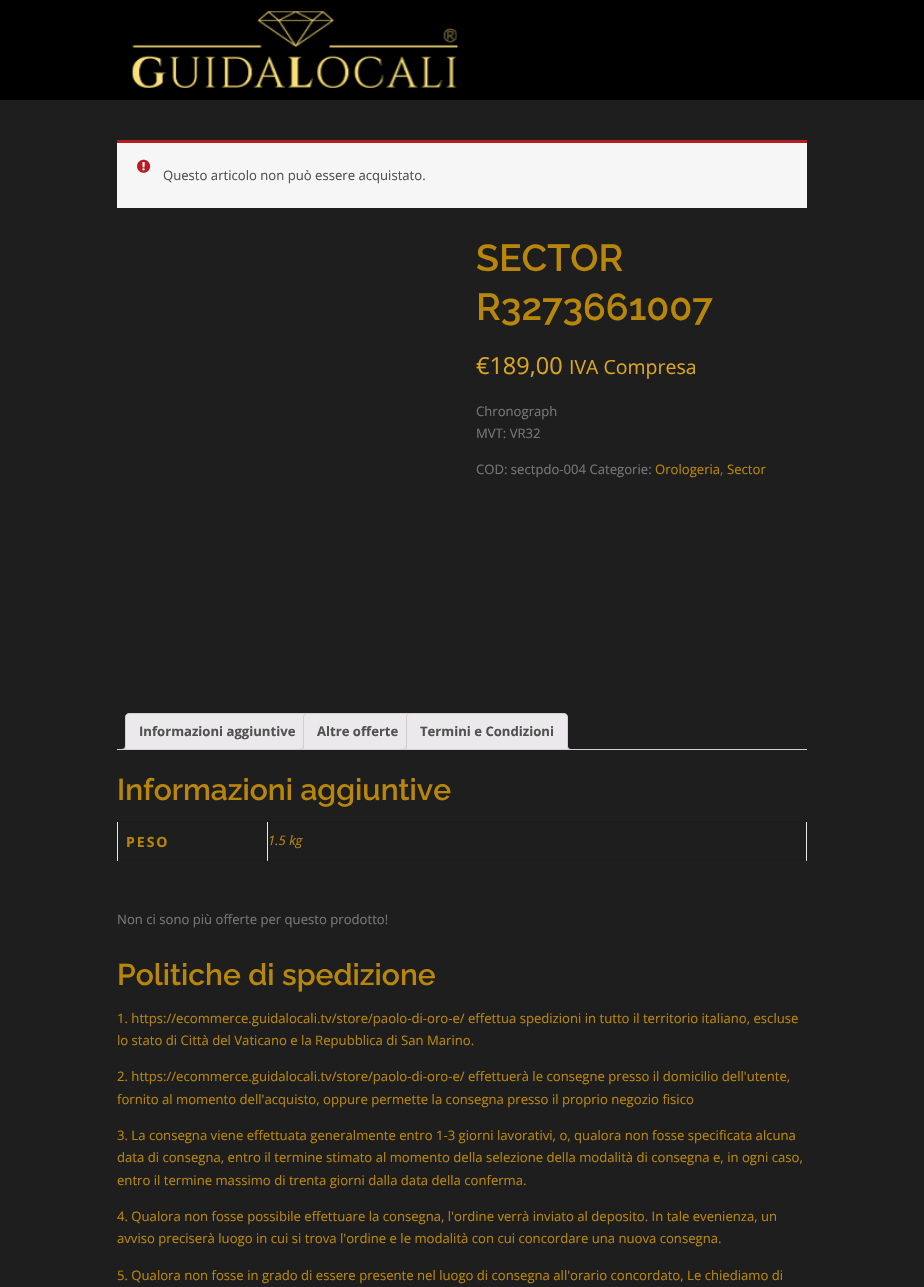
void draw(SkCanvas* canvas) {
    SkPaint paint;
    paint.setAntiAlias(true);
    auto spacedText = [&](const char* s, float x, float y, const SkFont& font, const SkPaint& ink, float letter, float word) {
        std::vector<SkGlyphID> glyphs(font.countText(s, strlen(s), SkTextEncoding::kUTF8));
        std::vector<float> xs(glyphs.size());
        font.textToGlyphs(s, strlen(s), SkTextEncoding::kUTF8, glyphs);
        font.getXPos(glyphs, xs, x);
        float extra = 0;
        for (size_t i = 0; i < glyphs.size(); i++) {
            xs[i] += extra;
            extra += letter + word * (glyphs[i] == font.unicharToGlyph(' '));
        }
        canvas->drawTextBlob(SkTextBlob::MakeFromPosHGlyphs(glyphs, xs, y, font), 0, 0, ink);
    };
    canvas->clear(0xFF1E1E1E);
    paint.setColor(0xFF000000);
    canvas->drawRect(SkRect::MakeXYWH(0, 0, 924, 100), paint);
    canvas->drawImageRect(SkImages::DeferredFromEncodedData(SkData::MakeFromFileName("img1.png")), SkRect::MakeXYWH(132, 11, 327, 77), SkSamplingOptions());
    paint.setColor(0xFF1B1B1B);
    canvas->drawRect(SkRect::MakeXYWH(117, 860, 690, 1), paint);
    paint.setColor(0xFFF7F6F7);
    canvas->drawRect(SkRect::MakeXYWH(117, 143, 690, 65), paint);
    paint.setColor(0xFFB81C23);
    canvas->drawRect(SkRect::MakeXYWH(117, 140, 690, 3), paint);
    canvas->drawImageRect(SkImages::DeferredFromEncodedData(SkData::MakeFromFileName("img2.png")), SkRect::MakeXYWH(137, 159, 14, 14), SkSamplingOptions());
    SkFont font1(fontMgr->matchFamilyStyle("Open Sans", SkFontStyle::Normal()), 13.12f);
    font1.setSubpixel(true);
    paint.setColor(0xFF515151);
    canvas->drawString("Questo articolo non può essere acquistato.", 163, 180, font1, paint);
    SkFont font2(fontMgr->matchFamilyStyle("Raleway", SkFontStyle(600, SkFontStyle::kNormal_Width, SkFontStyle::kUpright_Slant)), 37.5f);
    font2.setSubpixel(true);
    paint.setColor(0xFFB8860B);
    canvas->drawString("SECTOR", 476, 271, font2, paint);
    canvas->drawString("R3273661007", 476, 320, font2, paint);
    SkFont font3(fontMgr->matchFamilyStyle("Open Sans", SkFontStyle::Normal()), 23.5f);
    font3.setSubpixel(true);
    paint.setColor(0xFFDAA520);
    canvas->drawString("€189,00", 476, 374, font3, paint);
    SkFont font4(fontMgr->matchFamilyStyle("Open Sans", SkFontStyle::Normal()), 19.5f);
    font4.setSubpixel(true);
    canvas->drawString("IVA Compresa", 569, 374, font4, paint);
    paint.setColor(0xFF777777);
    canvas->drawString("Chronograph", 476, 416, font1, paint);
    canvas->drawString("MVT: VR32", 476, 438, font1, paint);
    canvas->drawString("COD: sectpdo-004 Categorie:", 476, 474, font1, paint);
    paint.setColor(0xFFB8860B);
    canvas->drawString("Orologeria", 655, 474, font1, paint);
    paint.setColor(0xFF777777);
    canvas->drawString(",", 720, 474, font1, paint);
    paint.setColor(0xFFB8860B);
    canvas->drawString("Sector", 727, 474, font1, paint);
    paint.setColor(0xFFEBE9EB);
    canvas->drawPath(SkPathBuilder().moveTo(129, 713.5f).lineTo(306, 713.5f).cubicTo(308, 713.5f, 309.5f, 715, 309.5f, 717).lineTo(309.5f, 749.5f).lineTo(125.5f, 749.5f).lineTo(125.5f, 717).cubicTo(125.5f, 715, 127, 713.5f, 129, 713.5f).close().detach(), paint);
    paint.setStyle(SkPaint::kStroke_Style);
    paint.setStrokeWidth(1);
    paint.setColor(0xFFD3CED2);
    canvas->drawPath(SkPathBuilder().moveTo(129, 713.5f).lineTo(306, 713.5f).cubicTo(308, 713.5f, 309.5f, 715, 309.5f, 717).lineTo(309.5f, 749.5f).lineTo(125.5f, 749.5f).lineTo(125.5f, 717).cubicTo(125.5f, 715, 127, 713.5f, 129, 713.5f).close().detach(), paint);
    SkFont font5(fontMgr->matchFamilyStyle("Open Sans", SkFontStyle::Bold()), 13.12f);
    font5.setSubpixel(true);
    paint.setStyle(SkPaint::kFill_Style);
    paint.setColor(0xFF515151);
    canvas->drawString("Informazioni aggiuntive", 139, 736, font5, paint);
    canvas->save();
    canvas->clipRect(SkRect::MakeXYWH(117, 713, 690, 37));
    paint.setColor(0xFFEBE9EB);
    canvas->drawPath(SkPathBuilder().moveTo(123, 750).lineTo(123, 752).cubicTo(126.5f, 752, 128, 750.5f, 128, 747).lineTo(126, 747).cubicTo(125.5f, 748.5f, 124.5f, 749.5f, 123, 750).close().detach(), paint);
    canvas->restore();
    paint.setColor(0xFFD3CED2);
    canvas->drawPath(SkPathBuilder(SkPathFillType::kEvenOdd).moveTo(121, 745).lineTo(126, 745).cubicTo(126, 748.5f, 124.5f, 750, 121, 750).close().moveTo(121, 745).lineTo(125, 745).cubicTo(125, 748, 124, 749, 121, 749).close().detach(), paint);
    paint.setColor(0xFFEBE9EB);
    canvas->drawPath(SkPathBuilder().moveTo(307, 713.5f).lineTo(409, 713.5f).cubicTo(411, 713.5f, 412.5f, 715, 412.5f, 717).lineTo(412.5f, 749.5f).lineTo(303.5f, 749.5f).lineTo(303.5f, 717).cubicTo(303.5f, 715, 305, 713.5f, 307, 713.5f).close().detach(), paint);
    paint.setStyle(SkPaint::kStroke_Style);
    paint.setColor(0xFFD3CED2);
    canvas->drawPath(SkPathBuilder().moveTo(307, 713.5f).lineTo(409, 713.5f).cubicTo(411, 713.5f, 412.5f, 715, 412.5f, 717).lineTo(412.5f, 749.5f).lineTo(303.5f, 749.5f).lineTo(303.5f, 717).cubicTo(303.5f, 715, 305, 713.5f, 307, 713.5f).close().detach(), paint);
    paint.setStyle(SkPaint::kFill_Style);
    paint.setColor(0xFF515151);
    canvas->drawString("Altre offerte", 317, 736, font5, paint);
    canvas->save();
    canvas->clipRect(SkRect::MakeXYWH(117, 713, 690, 37));
    paint.setColor(0xFFEBE9EB);
    canvas->drawPath(SkPathBuilder().moveTo(301, 750).lineTo(301, 752).cubicTo(304.5f, 752, 306, 750.5f, 306, 747).lineTo(304, 747).cubicTo(303.5f, 748.5f, 302.5f, 749.5f, 301, 750).close().detach(), paint);
    canvas->restore();
    paint.setColor(0xFFD3CED2);
    canvas->drawPath(SkPathBuilder(SkPathFillType::kEvenOdd).moveTo(299, 745).lineTo(304, 745).cubicTo(304, 748.5f, 302.5f, 750, 299, 750).close().moveTo(299, 745).lineTo(303, 745).cubicTo(303, 748, 302, 749, 299, 749).close().detach(), paint);
    paint.setColor(0xFFEBE9EB);
    canvas->drawPath(SkPathBuilder().moveTo(410, 713.5f).lineTo(564, 713.5f).cubicTo(566, 713.5f, 567.5f, 715, 567.5f, 717).lineTo(567.5f, 749.5f).lineTo(406.5f, 749.5f).lineTo(406.5f, 717).cubicTo(406.5f, 715, 408, 713.5f, 410, 713.5f).close().detach(), paint);
    paint.setStyle(SkPaint::kStroke_Style);
    paint.setColor(0xFFD3CED2);
    canvas->drawPath(SkPathBuilder().moveTo(410, 713.5f).lineTo(564, 713.5f).cubicTo(566, 713.5f, 567.5f, 715, 567.5f, 717).lineTo(567.5f, 749.5f).lineTo(406.5f, 749.5f).lineTo(406.5f, 717).cubicTo(406.5f, 715, 408, 713.5f, 410, 713.5f).close().detach(), paint);
    paint.setStyle(SkPaint::kFill_Style);
    paint.setColor(0xFF515151);
    canvas->drawString("Termini e Condizioni", 420, 736, font5, paint);
    canvas->save();
    canvas->clipRect(SkRect::MakeXYWH(117, 713, 690, 37));
    paint.setColor(0xFFEBE9EB);
    canvas->drawPath(SkPathBuilder().moveTo(404, 750).lineTo(404, 752).cubicTo(407.5f, 752, 409, 750.5f, 409, 747).lineTo(407, 747).cubicTo(406.5f, 748.5f, 405.5f, 749.5f, 404, 750).close().detach(), paint);
    canvas->restore();
    paint.setColor(0xFFD3CED2);
    canvas->drawPath(SkPathBuilder(SkPathFillType::kEvenOdd).moveTo(402, 745).lineTo(407, 745).cubicTo(407, 748.5f, 405.5f, 750, 402, 750).close().moveTo(402, 745).lineTo(406, 745).cubicTo(406, 748, 405, 749, 402, 749).close().detach(), paint);
    canvas->save();
    canvas->clipRect(SkRect::MakeXYWH(117, 713, 690, 37));
    paint.setColor(0xFFEBE9EB);
    canvas->drawPath(SkPathBuilder().moveTo(565, 747).cubicTo(565, 750.5f, 566.5f, 752, 570, 752).lineTo(570, 750).cubicTo(568.5f, 749.5f, 567.5f, 748.5f, 567, 747).close().detach(), paint);
    canvas->restore();
    paint.setColor(0xFFD3CED2);
    canvas->drawPath(SkPathBuilder(SkPathFillType::kEvenOdd).moveTo(567, 745).lineTo(572, 745).lineTo(572, 750).cubicTo(569.5f, 750, 567, 749, 567, 746).close().moveTo(568, 745).lineTo(572, 745).lineTo(572, 749).cubicTo(570, 749, 568, 748.5f, 568, 746).close().detach(), paint);
    canvas->drawRect(SkRect::MakeXYWH(117, 749, 690, 1), paint);
    SkFont font6(fontMgr->matchFamilyStyle("Raleway", SkFontStyle(600, SkFontStyle::kNormal_Width, SkFontStyle::kUpright_Slant)), 30);
    font6.setSubpixel(true);
    paint.setColor(0xFFB8860B);
    canvas->drawString("Informazioni aggiuntive", 117, 800, font6, paint);
    paint.setColor(0xFF1B1B1B);
    canvas->drawRect(SkRect::MakeXYWH(117, 822, 690, 1), paint);
    paint.setColor(0xFFE9E9E9);
    canvas->drawRect(SkRect::MakeXYWH(117, 822, 1, 39), paint);
    SkFont font7(fontMgr->matchFamilyStyle("Open Sans", SkFontStyle::Bold()), 14);
    font7.setSubpixel(true);
    paint.setColor(0xFFB8860B);
    spacedText("PESO", 126, 847, font7, paint, 2, 0);
    paint.setColor(0xFFE9E9E9);
    canvas->drawRect(SkRect::MakeXYWH(806, 822, 1, 39), paint);
    paint.setColor(0xFFD2D2D2);
    canvas->drawRect(SkRect::MakeXYWH(806, 860, 1, 1), paint);
    paint.setColor(0xFFE9E9E9);
    canvas->drawRect(SkRect::MakeXYWH(267, 822, 1, 39), paint);
    paint.setColor(0xFFD2D2D2);
    canvas->drawRect(SkRect::MakeXYWH(267, 860, 1, 1), paint);
    SkFont font8(fontMgr->matchFamilyStyle("Open Sans", SkFontStyle::Italic()), 13.12f);
    font8.setSubpixel(true);
    paint.setColor(0xFFB8860B);
    canvas->drawString("1.5 kg", 268, 845, font8, paint);
    paint.setColor(0xFF777777);
    canvas->drawString("Non ci sono più offerte per questo prodotto!", 117, 924, font1, paint);
    paint.setColor(0xFFB8860B);
    canvas->drawString("Politiche di spedizione", 117, 985, font6, paint);
    canvas->drawString("1. https://ecommerce.guidalocali.tv/store/paolo-di-oro-e/ effettua spedizioni in tutto il territorio italiano, escluse", 117, 1023, font1, paint);
    canvas->drawString("lo stato di Città del Vaticano e la Repubblica di San Marino.", 117, 1045, font1, paint);
    canvas->drawString("2. https://ecommerce.guidalocali.tv/store/paolo-di-oro-e/ effettuerà le consegne presso il domicilio dell'utente,", 117, 1081, font1, paint);
    canvas->drawString("fornito al momento dell'acquisto, oppure permette la consegna presso il proprio negozio fisico", 117, 1104, font1, paint);
    canvas->drawString("3. La consegna viene effettuata generalmente entro 1-3 giorni lavorativi, o, qualora non fosse specificata alcuna", 117, 1140, font1, paint);
    canvas->drawString("data di consegna, entro il termine stimato al momento della selezione della modalità di consegna e, in ogni caso,", 117, 1162, font1, paint);
    canvas->drawString("entro il termine massimo di trenta giorni dalla data della conferma.", 117, 1185, font1, paint);
    canvas->drawString("4. Qualora non fosse possibile effettuare la consegna, l'ordine verrà inviato al deposito. In tale evenienza, un", 117, 1221, font1, paint);
    canvas->drawString("avviso preciserà luogo in cui si trova l'ordine e le modalità con cui concordare una nuova consegna.", 117, 1243, font1, paint);
    canvas->drawString("5. Qualora non fosse in grado di essere presente nel luogo di consegna all'orario concordato, Le chiediamo di", 117, 1280, font1, paint);
}
